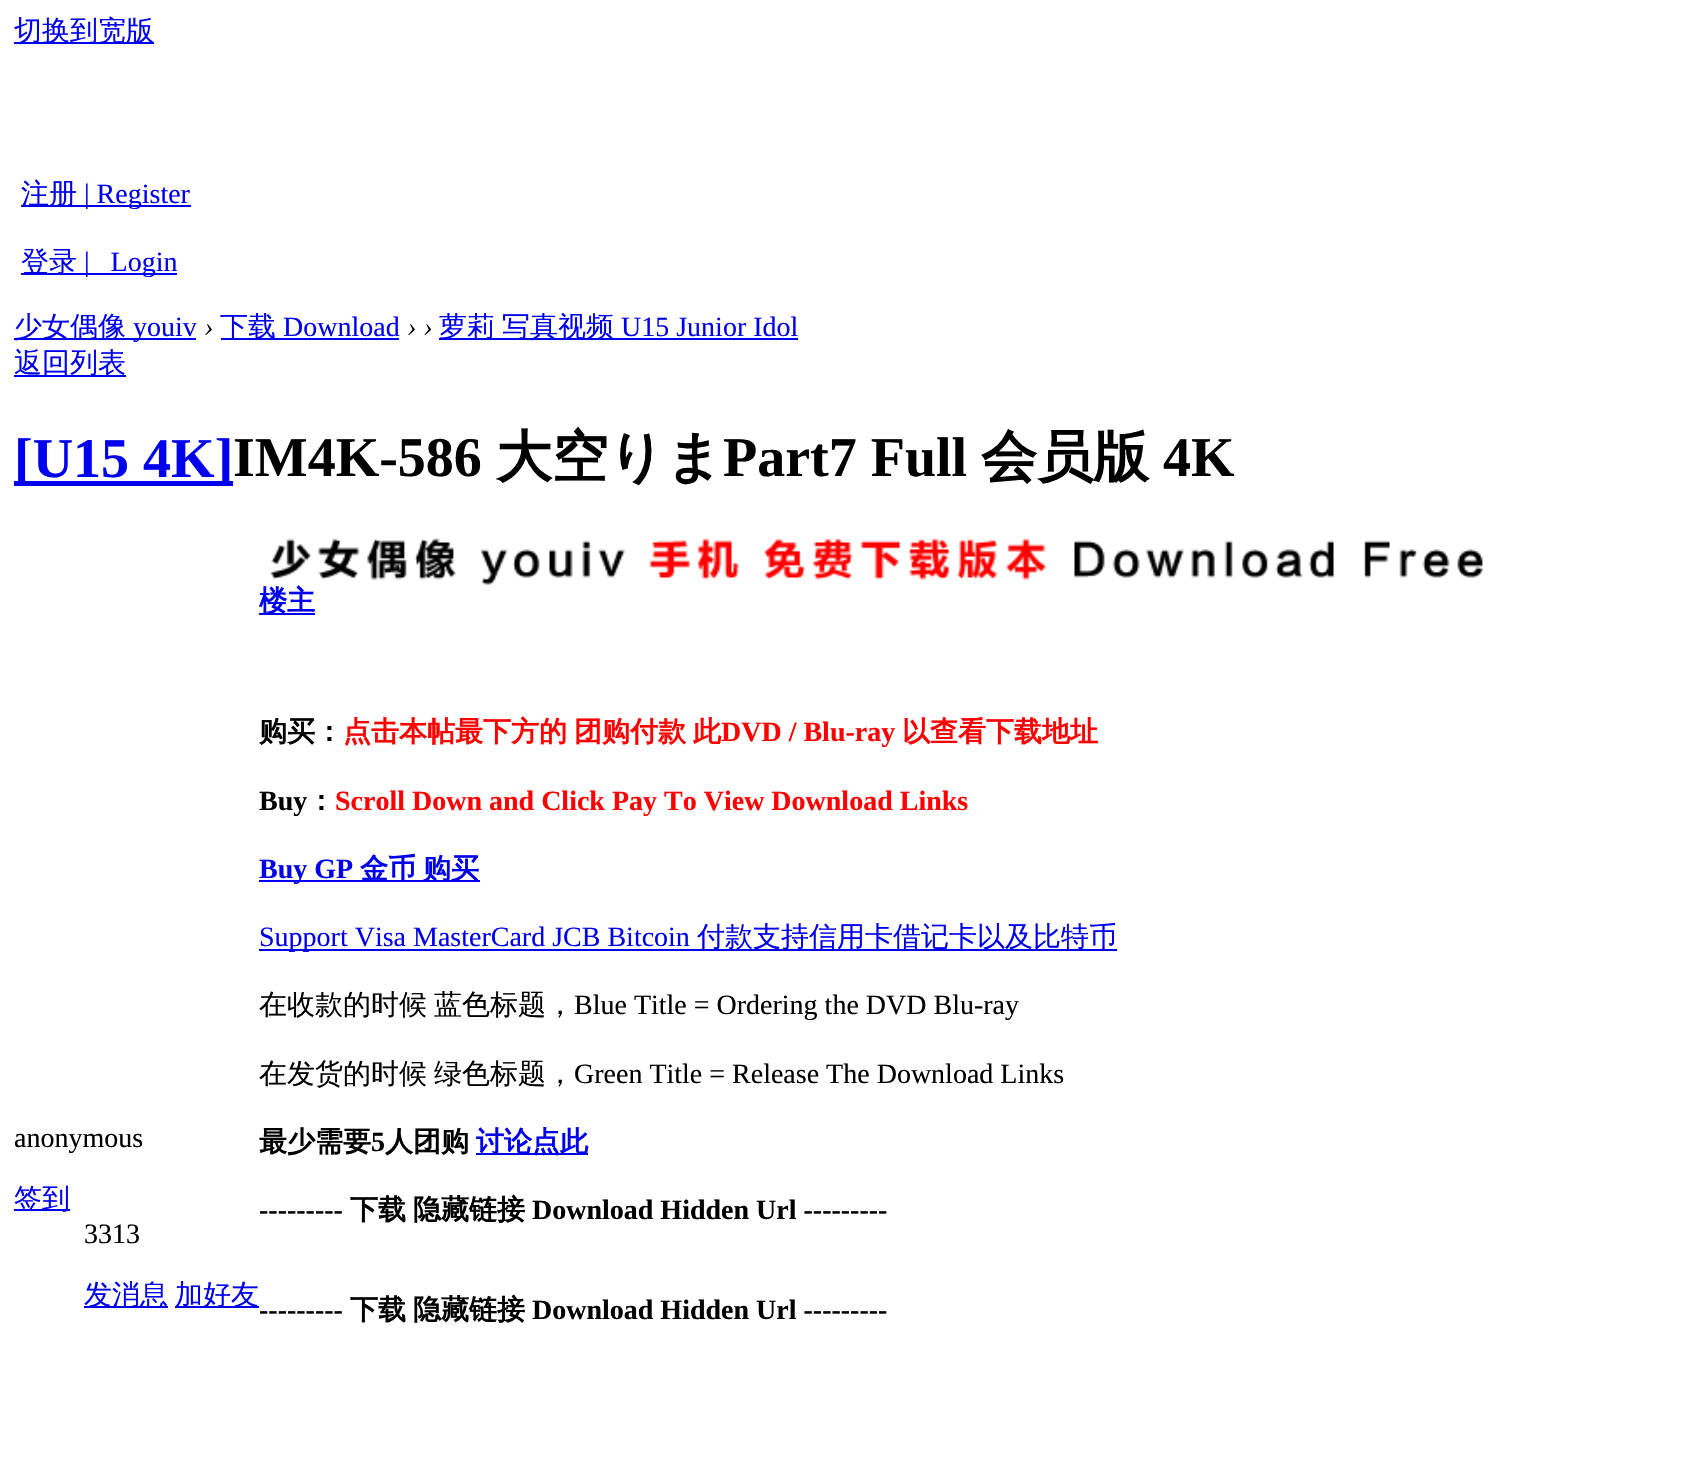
void draw(SkCanvas* canvas) {
    SkPaint paint;
    paint.setAntiAlias(true);
    canvas->clear(0xFFFFFFFF);
    paint.setColor(0xFF0000EE);
    canvas->drawRect(SkRect::MakeXYWH(14, 42, 140, 2), paint);
    SkFont font1(fontMgr->matchFamilyStyle("WenQuanYi Zen Hei", SkFontStyle(500, SkFontStyle::kNormal_Width, SkFontStyle::kUpright_Slant)), 28);
    font1.setSubpixel(true);
    canvas->drawString("切换到宽版", 14, 40, font1, paint);
    canvas->drawRect(SkRect::MakeXYWH(21, 205, 170, 2), paint);
    canvas->drawString("注册", 21, 203, font1, paint);
    SkFont font2(fontMgr->matchFamilyStyle("Liberation Serif", SkFontStyle::Normal()), 28);
    font2.setSubpixel(true);
    canvas->drawString("| Register", 84, 203, font2, paint);
    canvas->drawRect(SkRect::MakeXYWH(21, 273, 156, 2), paint);
    canvas->drawString("登录", 21, 271, font1, paint);
    canvas->drawString("|   Login", 84, 271, font2, paint);
    canvas->drawRect(SkRect::MakeXYWH(14, 338, 182, 2), paint);
    canvas->drawString("少女偶像", 14, 336, font1, paint);
    canvas->drawString("youiv", 133, 336, font2, paint);
    SkFont font3(fontMgr->matchFamilyStyle("Liberation Serif", SkFontStyle::Italic()), 28);
    font3.setSubpixel(true);
    paint.setColor(0xFF000000);
    canvas->drawString("›", 204, 336, font3, paint);
    paint.setColor(0xFF0000EE);
    canvas->drawRect(SkRect::MakeXYWH(221, 338, 178, 2), paint);
    canvas->drawString("下载", 220, 336, font1, paint);
    canvas->drawString("Download", 283, 336, font2, paint);
    paint.setColor(0xFF000000);
    canvas->drawString("› ›", 407, 336, font3, paint);
    paint.setColor(0xFF0000EE);
    canvas->drawRect(SkRect::MakeXYWH(439, 338, 359, 2), paint);
    canvas->drawString("萝莉", 439, 336, font1, paint);
    canvas->drawString("写真视频", 502, 336, font1, paint);
    canvas->drawString("U15 Junior Idol", 621, 336, font2, paint);
    canvas->drawRect(SkRect::MakeXYWH(14, 375, 112, 2), paint);
    canvas->drawString("返回列表", 14, 372, font1, paint);
    canvas->drawRect(SkRect::MakeXYWH(14, 481, 219, 5), paint);
    SkFont font4(fontMgr->matchFamilyStyle("Liberation Serif", SkFontStyle::Bold()), 56);
    font4.setSubpixel(true);
    canvas->drawString("[U15 4K]", 14, 477, font4, paint);
    paint.setColor(0xFF000000);
    canvas->drawString("IM4K-586", 233, 476, font4, paint);
    SkFont font5(fontMgr->matchFamilyStyle("WenQuanYi Zen Hei", SkFontStyle::Bold()), 56);
    font5.setSubpixel(true);
    canvas->drawString("大空りま", 496, 476, font5, paint);
    canvas->drawString("Part7 Full", 723, 476, font4, paint);
    canvas->drawString("会员版", 981, 476, font5, paint);
    canvas->drawString("4K", 1163, 476, font4, paint);
    canvas->drawString("anonymous", 14, 1147, font2, paint);
    paint.setColor(0xFF0000EE);
    canvas->drawRect(SkRect::MakeXYWH(14, 1209, 56, 2), paint);
    canvas->drawString("签到", 14, 1208, font1, paint);
    paint.setColor(0xFF000000);
    canvas->drawString("3313", 84, 1243, font2, paint);
    paint.setColor(0xFF0000EE);
    canvas->drawRect(SkRect::MakeXYWH(84, 1306, 84, 2), paint);
    canvas->drawString("发消息", 84, 1304, font1, paint);
    canvas->drawRect(SkRect::MakeXYWH(175, 1306, 84, 2), paint);
    canvas->drawString("加好友", 175, 1304, font1, paint);
    canvas->drawImageRect(SkImages::DeferredFromEncodedData(SkData::MakeFromFileName("img1.png")), SkRect::MakeXYWH(270, 538, 1213, 47), SkSamplingOptions());
    canvas->drawRect(SkRect::MakeXYWH(259, 613, 56, 2), paint);
    SkFont font6(fontMgr->matchFamilyStyle("WenQuanYi Zen Hei", SkFontStyle::Bold()), 28);
    font6.setSubpixel(true);
    canvas->drawString("楼主", 259, 610, font6, paint);
    paint.setColor(0xFF000000);
    canvas->drawString("购买：", 259, 741, font6, paint);
    paint.setColor(0xFFFF0000);
    canvas->drawString("点击本帖最下方的", 343, 741, font6, paint);
    canvas->drawString("团购付款", 574, 741, font6, paint);
    canvas->drawString("此", 693, 741, font6, paint);
    SkFont font7(fontMgr->matchFamilyStyle("Liberation Serif", SkFontStyle::Bold()), 28);
    font7.setSubpixel(true);
    canvas->drawString("DVD / Blu-ray", 721, 741, font7, paint);
    canvas->drawString("以查看下载地址", 902, 741, font6, paint);
    paint.setColor(0xFF000000);
    canvas->drawString("Buy", 259, 810, font7, paint);
    canvas->drawString("：", 307, 810, font6, paint);
    paint.setColor(0xFFFF0000);
    canvas->drawString("Scroll Down and Click Pay To View Download Links", 335, 810, font7, paint);
    paint.setColor(0xFF0000EE);
    canvas->drawRect(SkRect::MakeXYWH(259, 880, 221, 2), paint);
    canvas->drawString("Buy GP", 259, 878, font7, paint);
    canvas->drawString("金币", 360, 878, font6, paint);
    canvas->drawString("购买", 423, 878, font6, paint);
    canvas->drawRect(SkRect::MakeXYWH(259, 949, 858, 2), paint);
    canvas->drawString("Support Visa MasterCard JCB Bitcoin", 259, 946, font2, paint);
    canvas->drawString("付款支持信用卡借记卡以及比特币", 697, 946, font1, paint);
    paint.setColor(0xFF000000);
    canvas->drawString("在收款的时候", 259, 1014, font1, paint);
    canvas->drawString("蓝色标题，", 434, 1014, font1, paint);
    canvas->drawString("Blue Title = Ordering the DVD Blu-ray", 574, 1014, font2, paint);
    canvas->drawString("在发货的时候", 259, 1083, font1, paint);
    canvas->drawString("绿色标题，", 434, 1083, font1, paint);
    canvas->drawString("Green Title = Release The Download Links", 574, 1083, font2, paint);
    canvas->drawString("最少需要", 259, 1151, font6, paint);
    canvas->drawString("5", 371, 1151, font7, paint);
    canvas->drawString("人团购", 385, 1151, font6, paint);
    paint.setColor(0xFF0000EE);
    canvas->drawRect(SkRect::MakeXYWH(476, 1153, 112, 2), paint);
    canvas->drawString("讨论点此", 476, 1151, font6, paint);
    paint.setColor(0xFF000000);
    canvas->drawString("---------", 259, 1219, font7, paint);
    canvas->drawString("下载", 350, 1219, font6, paint);
    canvas->drawString("隐藏链接", 413, 1219, font6, paint);
    canvas->drawString("Download Hidden Url ---------", 532, 1219, font7, paint);
    canvas->drawString("---------", 259, 1319, font7, paint);
    canvas->drawString("下载", 350, 1319, font6, paint);
    canvas->drawString("隐藏链接", 413, 1319, font6, paint);
    canvas->drawString("Download Hidden Url ---------", 532, 1319, font7, paint);
}
